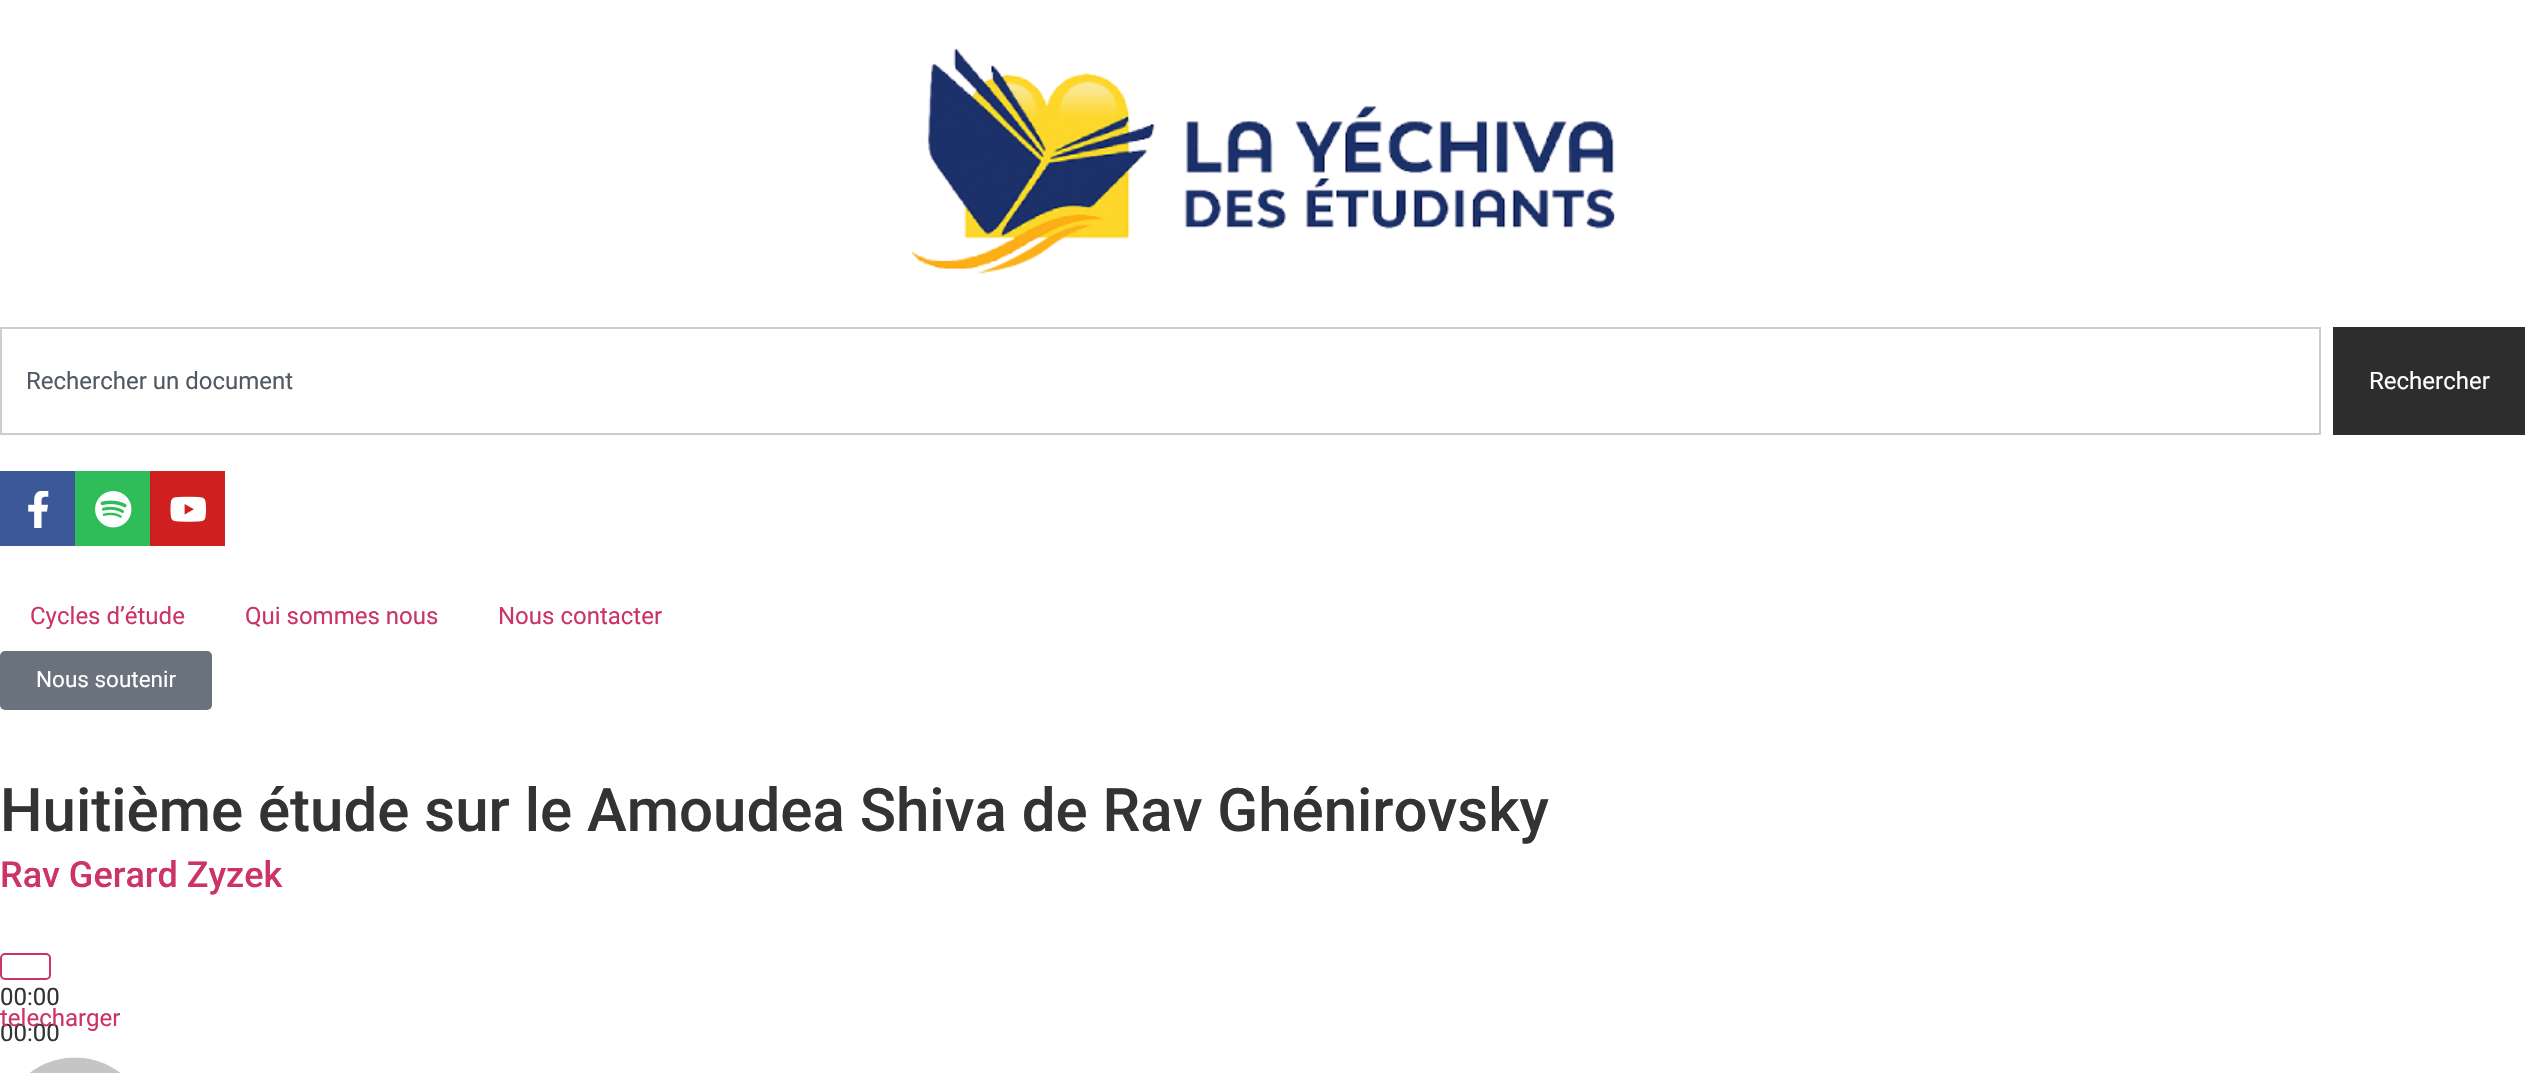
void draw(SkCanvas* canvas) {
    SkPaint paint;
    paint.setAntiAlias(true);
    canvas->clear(0xFFFFFFFF);
    canvas->drawImageRect(SkImages::DeferredFromEncodedData(SkData::MakeFromFileName("img1.png")), SkRect::MakeXYWH(910, 48, 705, 227), SkSamplingOptions());
    paint.setStyle(SkPaint::kStroke_Style);
    paint.setStrokeWidth(2);
    paint.setColor(0xFFCDCDCD);
    canvas->drawRect(SkRect::MakeXYWH(1, 328, 2319, 106), paint);
    SkFont font1(fontMgr->matchFamilyStyle("Roboto", SkFontStyle::Normal()), 24);
    font1.setSubpixel(true);
    paint.setStyle(SkPaint::kFill_Style);
    paint.setColor(0xFF515962);
    canvas->drawString("Rechercher un document", 26, 389, font1, paint);
    paint.setColor(0xFF2D2D2D);
    canvas->drawRect(SkRect::MakeXYWH(2333, 327, 192, 108), paint);
    paint.setColor(0xFFFFFFFF);
    canvas->drawString("Rechercher", 2369, 389, font1, paint);
    paint.setColor(0xFF3B5998);
    canvas->drawRect(SkRect::MakeXYWH(0, 471, 75, 75), paint);
    canvas->drawImageRect(SkImages::DeferredFromEncodedData(SkData::MakeFromFileName("img2.png")), SkRect::MakeXYWH(28, 491, 21, 37), SkSamplingOptions());
    paint.setColor(0xFF2EBD59);
    canvas->drawRect(SkRect::MakeXYWH(75, 471, 75, 75), paint);
    canvas->drawImageRect(SkImages::DeferredFromEncodedData(SkData::MakeFromFileName("img3.png")), SkRect::MakeXYWH(95, 491, 37, 37), SkSamplingOptions());
    paint.setColor(0xFFCD201F);
    canvas->drawRect(SkRect::MakeXYWH(150, 471, 75, 75), paint);
    canvas->drawImageRect(SkImages::DeferredFromEncodedData(SkData::MakeFromFileName("img4.png")), SkRect::MakeXYWH(170, 496, 36, 26), SkSamplingOptions());
    paint.setColor(0xFFCC3366);
    canvas->drawString("Cycles d’étude", 30, 624, font1, paint);
    canvas->drawString("Qui sommes nous", 245, 624, font1, paint);
    canvas->drawString("Nous contacter", 498, 624, font1, paint);
    paint.setColor(0xFF69727D);
    canvas->drawRoundRect(SkRect::MakeXYWH(0, 651, 212, 59), 5, 5, paint);
    SkFont font2(fontMgr->matchFamilyStyle("Roboto", SkFontStyle::Normal()), 22.5f);
    font2.setSubpixel(true);
    paint.setColor(0xFFFFFFFF);
    canvas->drawString("Nous soutenir", 36, 687, font2, paint);
    SkFont font3(fontMgr->matchFamilyStyle("Roboto", SkFontStyle(500, SkFontStyle::kNormal_Width, SkFontStyle::kUpright_Slant)), 60);
    font3.setSubpixel(true);
    paint.setColor(0xFF333333);
    canvas->drawString("Huitième étude sur le Amoudea Shiva de Rav Ghénirovsky", 0, 831, font3, paint);
    SkFont font4(fontMgr->matchFamilyStyle("Roboto", SkFontStyle(500, SkFontStyle::kNormal_Width, SkFontStyle::kUpright_Slant)), 36);
    font4.setSubpixel(true);
    paint.setColor(0xFFCC3366);
    canvas->drawString("Rav Gerard Zyzek", 0, 887, font4, paint);
    paint.setStyle(SkPaint::kStroke_Style);
    canvas->drawRoundRect(SkRect::MakeXYWH(1, 954, 49, 25), 4, 4, paint);
    paint.setStyle(SkPaint::kFill_Style);
    paint.setColor(0xFF333333);
    canvas->drawString("00:00", 0, 1005, font1, paint);
    canvas->drawString("00:00", 0, 1041, font1, paint);
    paint.setColor(0xFFCC3366);
    canvas->drawString("telecharger", 0, 1026, font1, paint);
    canvas->drawImageRect(SkImages::DeferredFromEncodedData(SkData::MakeFromFileName("img5.png")), SkRect::MakeXYWH(30, 1057, 90, 16), SkSamplingOptions());
}
